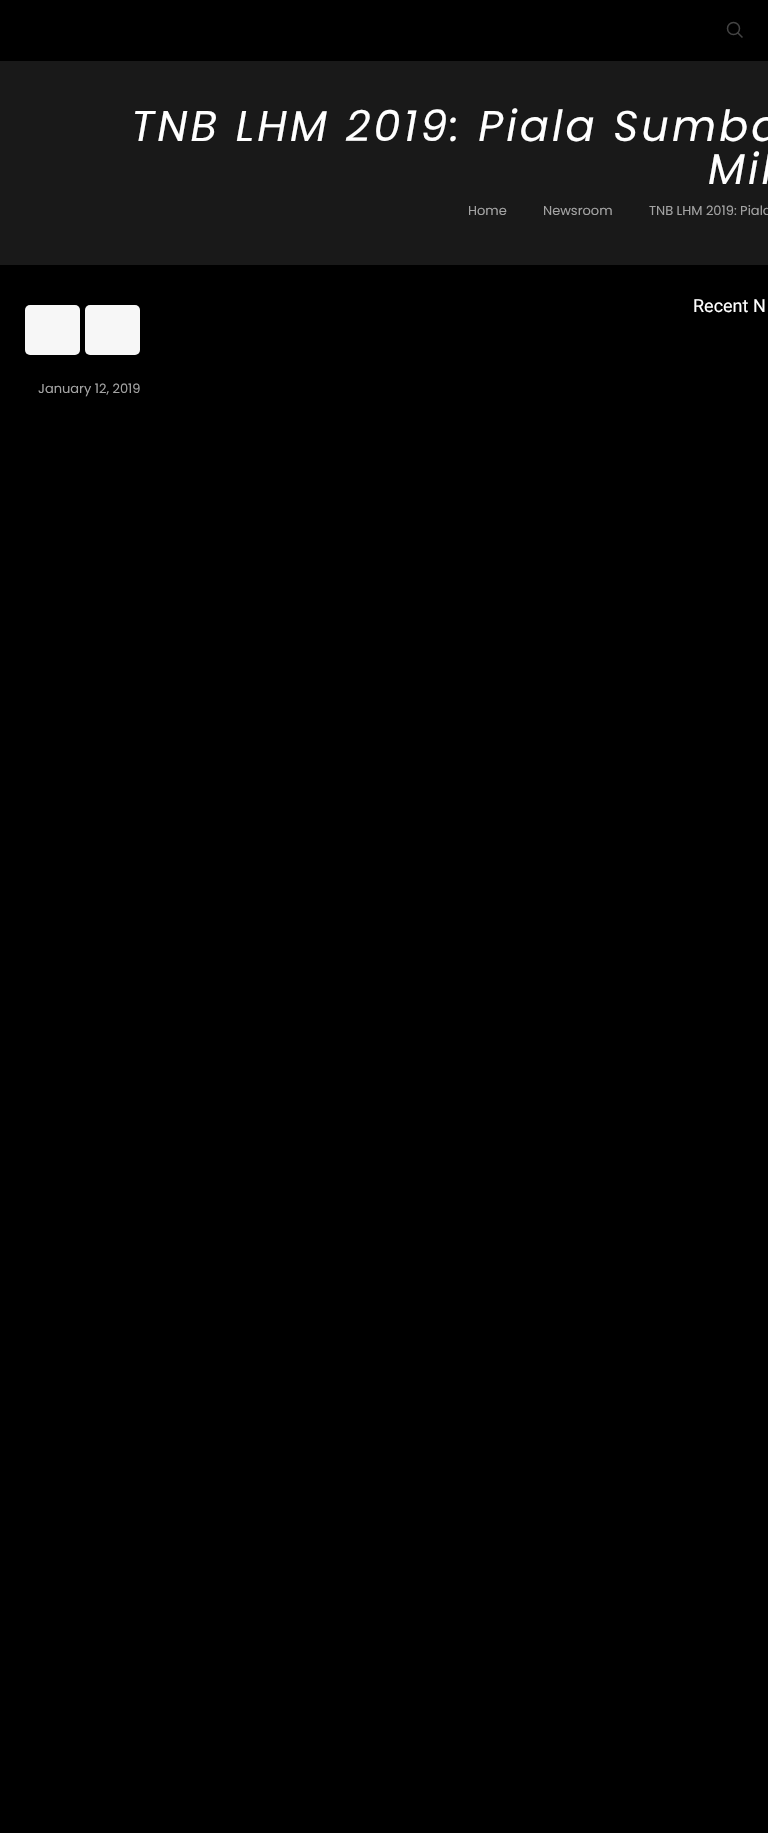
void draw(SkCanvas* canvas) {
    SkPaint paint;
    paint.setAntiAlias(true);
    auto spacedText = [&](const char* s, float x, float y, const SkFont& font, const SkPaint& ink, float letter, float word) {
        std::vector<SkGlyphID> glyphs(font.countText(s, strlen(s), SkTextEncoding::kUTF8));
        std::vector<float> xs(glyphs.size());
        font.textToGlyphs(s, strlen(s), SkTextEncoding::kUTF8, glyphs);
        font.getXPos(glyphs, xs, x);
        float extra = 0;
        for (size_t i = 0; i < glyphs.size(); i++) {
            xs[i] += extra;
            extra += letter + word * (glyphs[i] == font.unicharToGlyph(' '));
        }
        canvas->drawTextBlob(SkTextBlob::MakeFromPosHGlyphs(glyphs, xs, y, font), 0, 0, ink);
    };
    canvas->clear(0xFF000000);
    paint.setStyle(SkPaint::kStroke_Style);
    paint.setStrokeWidth(1.5f);
    paint.setColor(0xFF444444);
    canvas->drawCircle(733.5f, 28.5f, 6, paint);
    canvas->drawPath(SkPathBuilder().moveTo(737.5f, 32.5f).lineTo(742.5f, 37.5f).detach(), paint);
    paint.setStyle(SkPaint::kFill_Style);
    paint.setColor(0xFF191919);
    canvas->drawRect(SkRect::MakeXYWH(0, 61, 768, 204), paint);
    SkFont font1(fontMgr->matchFamilyStyle("Poppins", SkFontStyle::Italic()), 43);
    font1.setSubpixel(true);
    paint.setColor(0xFFFFFFFF);
    spacedText("TNB LHM 2019: Piala Sumba", 131, 141, font1, paint, 3, 0);
    spacedText("Mil", 708, 184, font1, paint, 3, 0);
    SkFont font2(fontMgr->matchFamilyStyle("Poppins", SkFontStyle::Normal()), 13);
    font2.setSubpixel(true);
    paint.setColor(0xFFA3A3A3);
    canvas->drawString("Home", 468, 215, font2, paint);
    canvas->drawString("Newsroom", 543, 215, font2, paint);
    canvas->drawString("TNB LHM 2019: Piala", 649, 215, font2, paint);
    SkFont font3(fontMgr->matchFamilyStyle("Roboto", SkFontStyle::Normal()), 18);
    font3.setSubpixel(true);
    paint.setColor(0xFFFFFFFF);
    canvas->drawString("Recent N", 693, 312, font3, paint);
    paint.setColor(0xFFF7F7F7);
    canvas->drawRoundRect(SkRect::MakeXYWH(25, 305, 55, 50), 5, 5, paint);
    canvas->drawRoundRect(SkRect::MakeXYWH(85, 305, 55, 50), 5, 5, paint);
    paint.setColor(0xFFA3A3A3);
    canvas->drawString("January 12, 2019", 38, 393, font2, paint);
}
